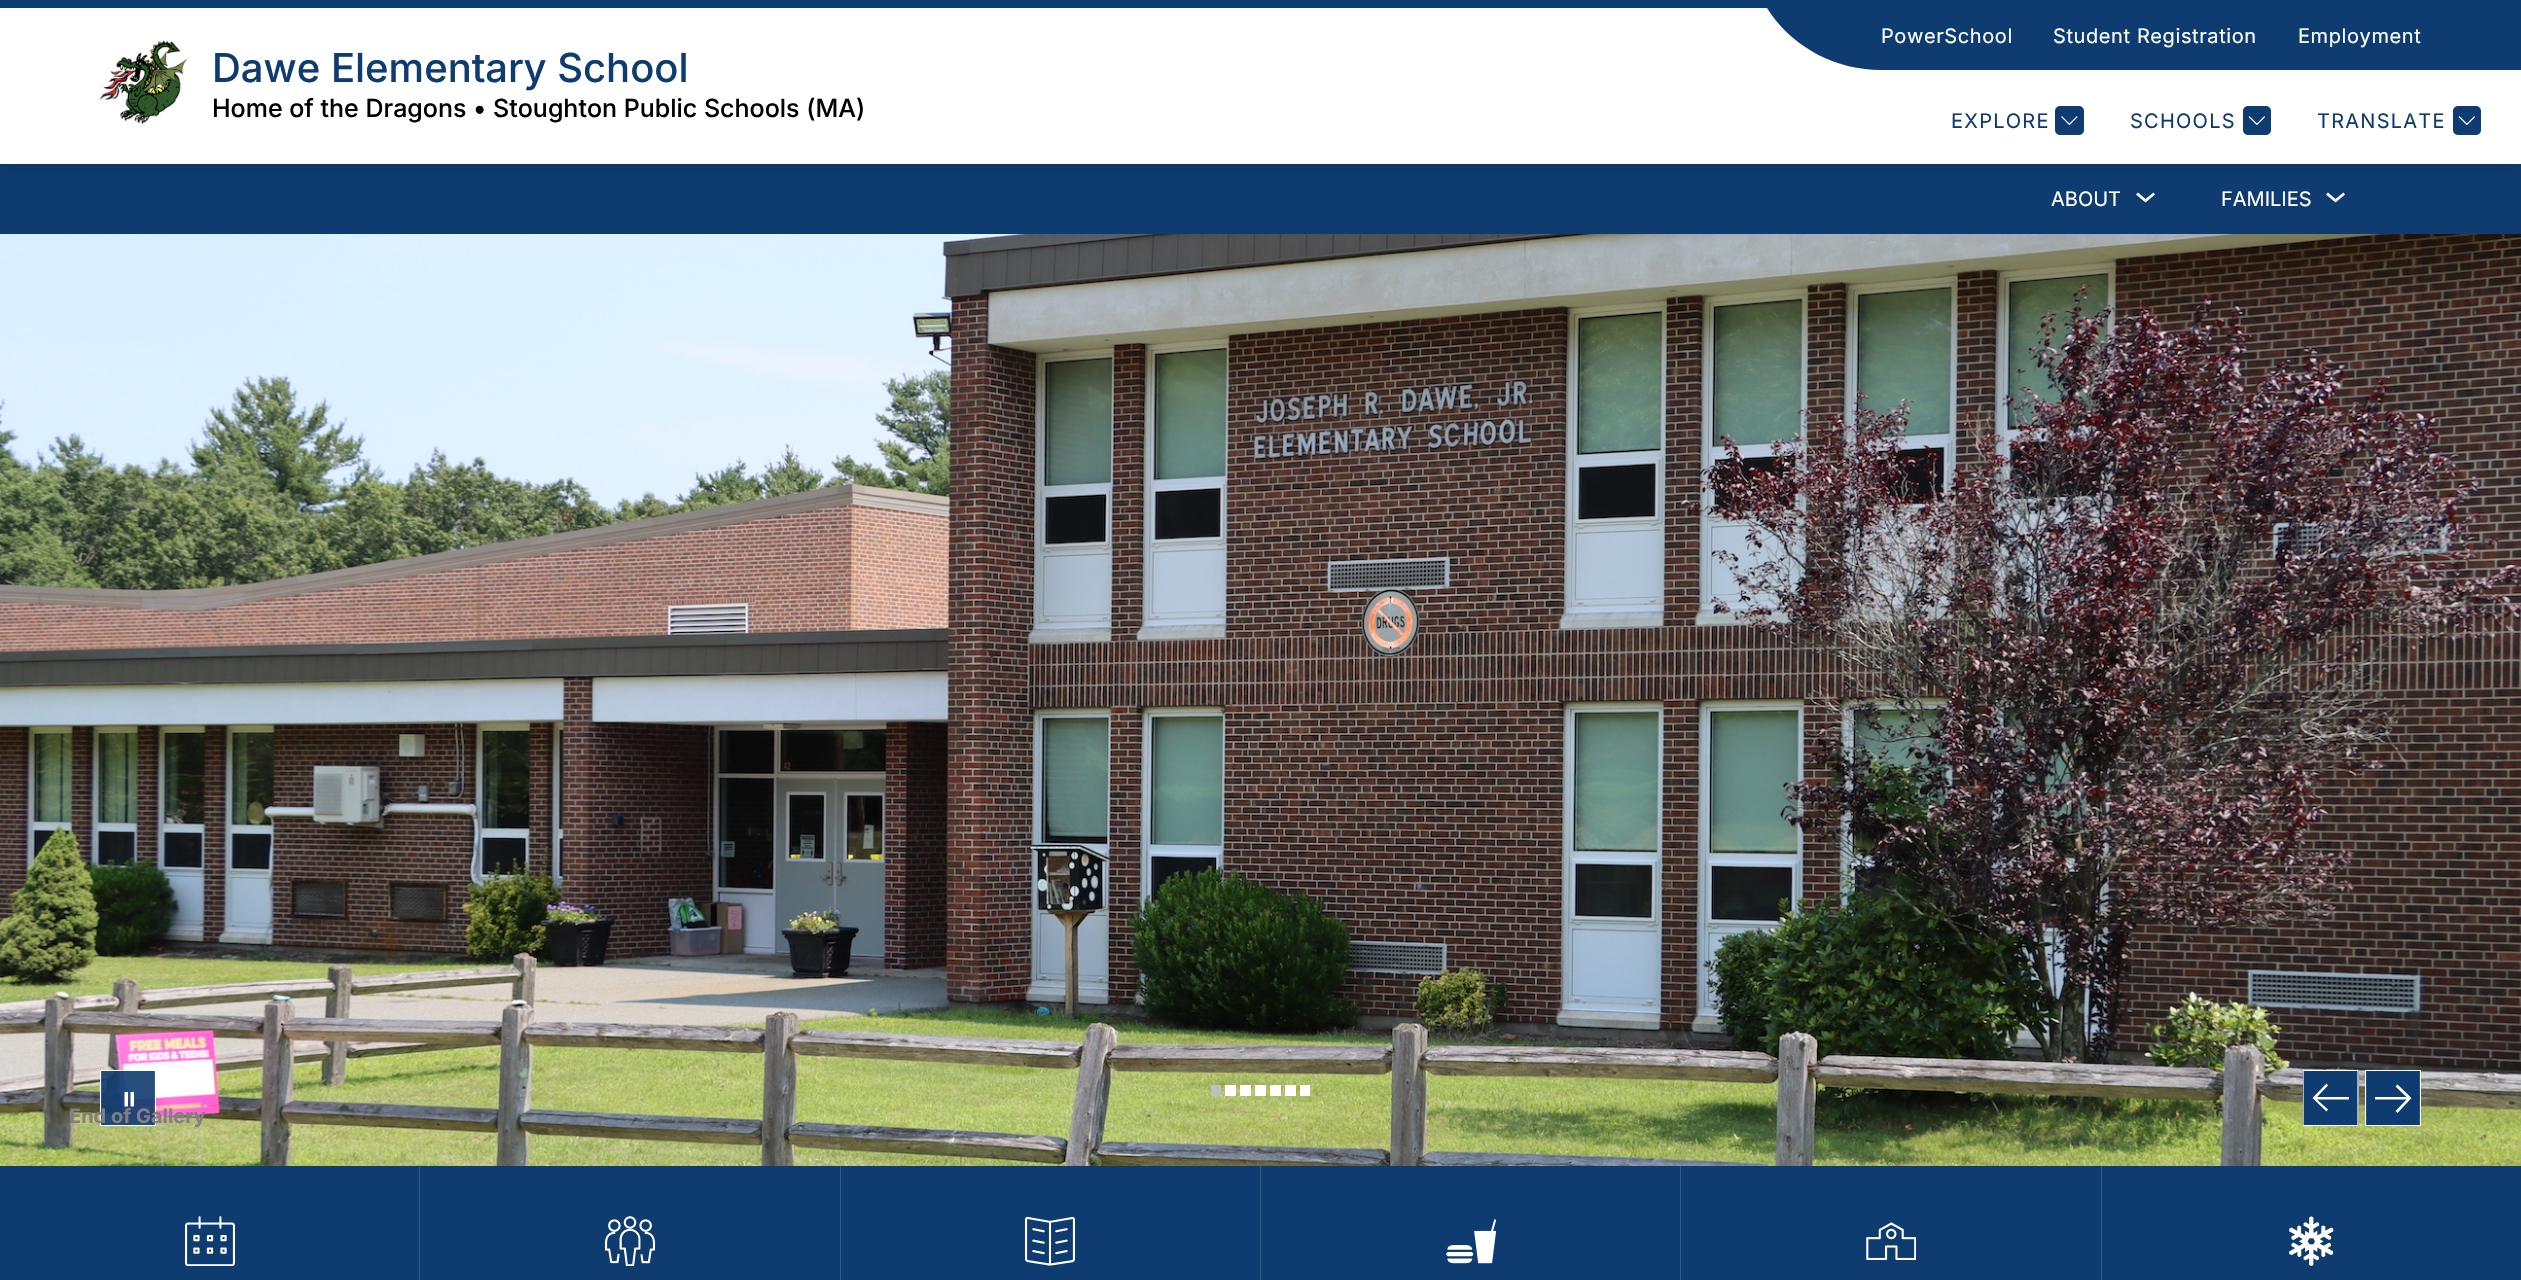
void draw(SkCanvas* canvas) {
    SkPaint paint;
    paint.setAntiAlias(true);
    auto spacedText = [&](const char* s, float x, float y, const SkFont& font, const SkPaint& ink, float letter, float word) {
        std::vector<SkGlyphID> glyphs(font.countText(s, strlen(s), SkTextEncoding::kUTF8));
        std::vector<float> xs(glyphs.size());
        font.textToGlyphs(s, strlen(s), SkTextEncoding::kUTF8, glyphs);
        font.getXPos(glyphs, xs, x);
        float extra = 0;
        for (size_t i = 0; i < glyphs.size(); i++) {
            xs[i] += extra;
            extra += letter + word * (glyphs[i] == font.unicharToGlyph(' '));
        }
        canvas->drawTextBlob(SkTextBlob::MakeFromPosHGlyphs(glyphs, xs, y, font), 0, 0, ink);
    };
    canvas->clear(0xFFFFFFFF);
    paint.setColor(0xFF0E3C70);
    canvas->drawRect(SkRect::MakeXYWH(0, 164, 2521, 70), paint);
    paint.setColor(0x1A000000);
    paint.setMaskFilter(SkMaskFilter::MakeBlur(kNormal_SkBlurStyle, 6));
    canvas->drawRect(SkRect::MakeXYWH(0, 5, 2521, 164), paint);
    paint.setMaskFilter(nullptr);
    paint.setColor(0xFFFFFFFF);
    canvas->drawRect(SkRect::MakeXYWH(0, 8, 2521, 156), paint);
    paint.setColor(0xFF0E3C70);
    canvas->drawRect(SkRect::MakeXYWH(0, 0, 1767, 8), paint);
    canvas->drawImageRect(SkImages::DeferredFromEncodedData(SkData::MakeFromFileName("img1.png")), SkRect::MakeXYWH(99, 40, 89, 85), SkSamplingOptions());
    SkFont font1(fontMgr->matchFamilyStyle("Inter", SkFontStyle(500, SkFontStyle::kNormal_Width, SkFontStyle::kUpright_Slant)), 40);
    font1.setSubpixel(true);
    canvas->drawString("Dawe Elementary School", 212, 82, font1, paint);
    SkFont font2(fontMgr->matchFamilyStyle("Inter", SkFontStyle(500, SkFontStyle::kNormal_Width, SkFontStyle::kUpright_Slant)), 25);
    font2.setSubpixel(true);
    paint.setColor(0xFF000000);
    canvas->drawString("Home of the Dragons • Stoughton Public Schools (MA)", 212, 117, font2, paint);
    paint.setColor(0xFF0E3C70);
    canvas->drawRect(SkRect::MakeXYWH(1884, 0, 637, 70), paint);
    canvas->drawPath(SkPathBuilder().moveTo(1881, 70).lineTo(1884, 70).lineTo(1884, 0).lineTo(1764, 0).cubicTo(1763, 0, 1762, 1, 1763, 2).lineTo(1771, 14).cubicTo(1796, 49, 1837, 70, 1881, 70).close().detach(), paint);
    SkFont font3(fontMgr->matchFamilyStyle("Inter", SkFontStyle::Normal()), 20);
    font3.setSubpixel(true);
    paint.setColor(0xFFFFFFFF);
    spacedText("PowerSchool", 1881, 43, font3, paint, 0.6f, 0);
    spacedText("Student Registration", 2053, 43, font3, paint, 0.6f, 0);
    spacedText("Employment", 2298, 43, font3, paint, 0.6f, 0);
    paint.setColor(0xFF0E3C70);
    spacedText("EXPLORE", 1951, 128, font3, paint, 1.25f, 0);
    canvas->drawImageRect(SkImages::DeferredFromEncodedData(SkData::MakeFromFileName("img2.png")), SkRect::MakeXYWH(2055, 106, 29, 29), SkSamplingOptions());
    spacedText("SCHOOLS", 2130, 128, font3, paint, 1.25f, 0);
    canvas->drawImageRect(SkImages::DeferredFromEncodedData(SkData::MakeFromFileName("img3.png")), SkRect::MakeXYWH(2243, 106, 28, 29), SkSamplingOptions());
    spacedText("TRANSLATE", 2317, 128, font3, paint, 1.25f, 0);
    canvas->drawImageRect(SkImages::DeferredFromEncodedData(SkData::MakeFromFileName("img3.png")), SkRect::MakeXYWH(2453, 106, 28, 29), SkSamplingOptions());
    paint.setColor(0xFFFFFFFF);
    canvas->drawString("ABOUT", 2051, 206, font3, paint);
    canvas->drawPath(SkPathBuilder(SkPathFillType::kEvenOdd).moveTo(2153.5f, 192.5f).lineTo(2145.5f, 199).lineTo(2138, 192.5f).lineTo(2136, 194.5f).lineTo(2145.5f, 202.5f).lineTo(2155, 194.5f).close().detach(), paint);
    canvas->drawString("FAMILIES", 2221, 206, font3, paint);
    canvas->drawPath(SkPathBuilder(SkPathFillType::kEvenOdd).moveTo(2343.5f, 192.5f).lineTo(2335.5f, 199).lineTo(2328, 192.5f).lineTo(2326, 194.5f).lineTo(2335.5f, 202.5f).lineTo(2345, 194.5f).close().detach(), paint);
    canvas->drawImageRect(SkImages::DeferredFromEncodedData(SkData::MakeFromFileName("img4.png")), SkRect::MakeXYWH(0, 234, 2521, 932), SkSamplingOptions());
    paint.setColor(0xE60E3C70);
    canvas->drawRect(SkRect::MakeXYWH(101, 1071, 54, 54), paint);
    canvas->save();
    canvas->clipRect(SkRect::MakeXYWH(100, 1070, 56, 56));
    paint.setStyle(SkPaint::kStroke_Style);
    paint.setStrokeWidth(1.2f);
    paint.setColor(0xFFFFFFFF);
    canvas->drawPath(SkPathBuilder().moveTo(100.5f, 1070.5f).lineTo(155.5f, 1070.5f).lineTo(155.5f, 1125.5f).lineTo(100.5f, 1125.5f).close().detach(), paint);
    canvas->restore();
    paint.setStyle(SkPaint::kFill_Style);
    canvas->drawPath(SkPathBuilder(SkPathFillType::kEvenOdd).moveTo(128, 1092).lineTo(124.5f, 1092).lineTo(124.5f, 1106.5f).lineTo(128, 1106.5f).close().moveTo(134, 1092).lineTo(130.5f, 1092).lineTo(130.5f, 1106.5f).lineTo(134, 1106.5f).close().detach(), paint);
    paint.setColor(0xFFBFBFBF);
    canvas->drawRect(SkRect::MakeXYWH(1211, 1085, 10, 11), paint);
    paint.setColor(0xFFFFFFFF);
    canvas->drawRect(SkRect::MakeXYWH(1225, 1085, 11, 11), paint);
    canvas->drawRect(SkRect::MakeXYWH(1240, 1085, 11, 11), paint);
    canvas->drawRect(SkRect::MakeXYWH(1255, 1085, 11, 11), paint);
    canvas->drawRect(SkRect::MakeXYWH(1270, 1085, 11, 11), paint);
    canvas->drawRect(SkRect::MakeXYWH(1285, 1085, 11, 11), paint);
    canvas->drawRect(SkRect::MakeXYWH(1300, 1085, 10, 11), paint);
    paint.setColor(0xFF0E3C70);
    canvas->drawRect(SkRect::MakeXYWH(2303, 1070, 56, 56), paint);
    canvas->save();
    canvas->clipRect(SkRect::MakeXYWH(2303, 1070, 56, 56));
    paint.setStyle(SkPaint::kStroke_Style);
    paint.setColor(0xFFFFFFFF);
    canvas->drawPath(SkPathBuilder().moveTo(2358, 1125.5f).lineTo(2303, 1125.5f).lineTo(2303, 1070.5f).lineTo(2358, 1070.5f).close().detach(), paint);
    canvas->restore();
    paint.setStyle(SkPaint::kFill_Style);
    canvas->drawPath(SkPathBuilder().moveTo(2326.5f, 1111.5f).lineTo(2312.5f, 1098).lineTo(2326.5f, 1083.5f).lineTo(2328, 1085.5f).lineTo(2317, 1097).lineTo(2349, 1097).lineTo(2349, 1099.5f).lineTo(2317, 1099.5f).lineTo(2328, 1109.5f).close().detach(), paint);
    paint.setColor(0xFF0E3C70);
    canvas->drawRect(SkRect::MakeXYWH(2366, 1071, 54, 54), paint);
    canvas->save();
    canvas->clipRect(SkRect::MakeXYWH(2365, 1070, 56, 56));
    paint.setStyle(SkPaint::kStroke_Style);
    paint.setColor(0xFFFFFFFF);
    canvas->drawPath(SkPathBuilder().moveTo(2365.5f, 1070.5f).lineTo(2420.5f, 1070.5f).lineTo(2420.5f, 1125.5f).lineTo(2365.5f, 1125.5f).close().detach(), paint);
    canvas->restore();
    paint.setStyle(SkPaint::kFill_Style);
    canvas->drawPath(SkPathBuilder().moveTo(2397.5f, 1084.5f).lineTo(2411.5f, 1098).lineTo(2397.5f, 1113).lineTo(2395.5f, 1111).lineTo(2406.5f, 1099.5f).lineTo(2375, 1099.5f).lineTo(2375, 1097).lineTo(2406.5f, 1097).lineTo(2395.5f, 1086.5f).close().detach(), paint);
    SkFont font4(fontMgr->matchFamilyStyle("Inter", SkFontStyle::Bold()), 20);
    font4.setSubpixel(true);
    paint.setColor(0xFF837E81);
    canvas->drawString("End of Gallery", 69, 1123, font4, paint);
    paint.setColor(0xFF0E3C70);
    canvas->drawRect(SkRect::MakeXYWH(0, 1166, 419, 114), paint);
    canvas->drawImageRect(SkImages::DeferredFromEncodedData(SkData::MakeFromFileName("img5.png")), SkRect::MakeXYWH(185, 1216, 50, 50), SkSamplingOptions());
    canvas->drawRect(SkRect::MakeXYWH(420, 1166, 420, 114), paint);
    paint.setColor(0xFF325985);
    canvas->drawRect(SkRect::MakeXYWH(419, 1166, 1, 114), paint);
    canvas->drawImageRect(SkImages::DeferredFromEncodedData(SkData::MakeFromFileName("img6.png")), SkRect::MakeXYWH(605, 1216, 50, 50), SkSamplingOptions());
    paint.setColor(0xFF0E3C70);
    canvas->drawRect(SkRect::MakeXYWH(841, 1166, 419, 114), paint);
    paint.setColor(0xFF325985);
    canvas->drawRect(SkRect::MakeXYWH(840, 1166, 1, 114), paint);
    canvas->drawImageRect(SkImages::DeferredFromEncodedData(SkData::MakeFromFileName("img7.png")), SkRect::MakeXYWH(1025, 1216, 50, 50), SkSamplingOptions());
    paint.setColor(0xFF0E3C70);
    canvas->drawRect(SkRect::MakeXYWH(1261, 1166, 419, 114), paint);
    paint.setColor(0xFF325985);
    canvas->drawRect(SkRect::MakeXYWH(1260, 1166, 1, 114), paint);
    canvas->drawImageRect(SkImages::DeferredFromEncodedData(SkData::MakeFromFileName("img8.png")), SkRect::MakeXYWH(1446, 1219, 50, 45), SkSamplingOptions());
    paint.setColor(0xFF0E3C70);
    canvas->drawRect(SkRect::MakeXYWH(1681, 1166, 420, 114), paint);
    paint.setColor(0xFF325985);
    canvas->drawRect(SkRect::MakeXYWH(1680, 1166, 1, 114), paint);
    canvas->drawImageRect(SkImages::DeferredFromEncodedData(SkData::MakeFromFileName("img9.png")), SkRect::MakeXYWH(1866, 1222, 50, 38), SkSamplingOptions());
    paint.setColor(0xFF0E3C70);
    canvas->drawRect(SkRect::MakeXYWH(2102, 1166, 419, 114), paint);
    paint.setColor(0xFF325985);
    canvas->drawRect(SkRect::MakeXYWH(2101, 1166, 1, 114), paint);
    canvas->drawImageRect(SkImages::DeferredFromEncodedData(SkData::MakeFromFileName("img10.png")), SkRect::MakeXYWH(2289, 1216, 45, 50), SkSamplingOptions());
}
